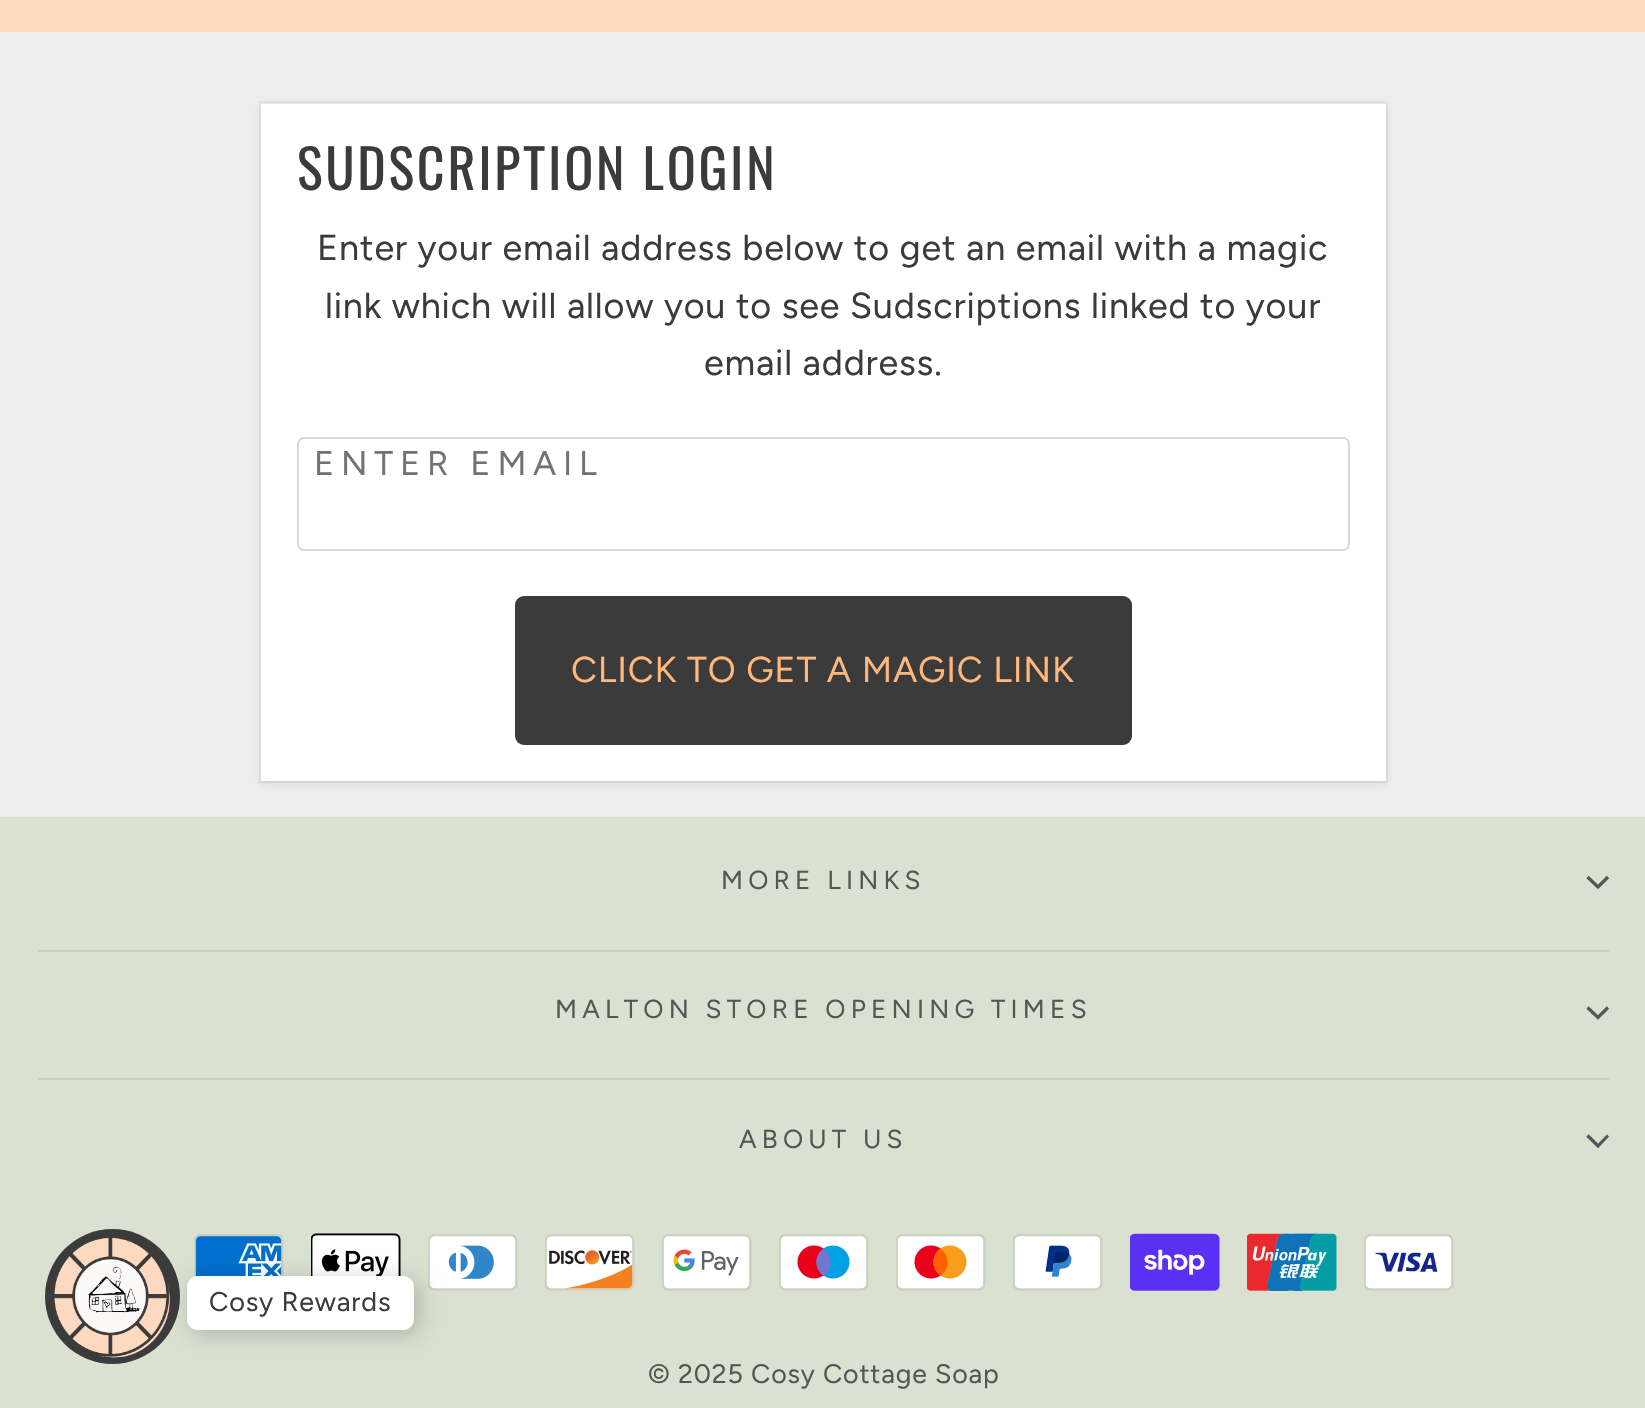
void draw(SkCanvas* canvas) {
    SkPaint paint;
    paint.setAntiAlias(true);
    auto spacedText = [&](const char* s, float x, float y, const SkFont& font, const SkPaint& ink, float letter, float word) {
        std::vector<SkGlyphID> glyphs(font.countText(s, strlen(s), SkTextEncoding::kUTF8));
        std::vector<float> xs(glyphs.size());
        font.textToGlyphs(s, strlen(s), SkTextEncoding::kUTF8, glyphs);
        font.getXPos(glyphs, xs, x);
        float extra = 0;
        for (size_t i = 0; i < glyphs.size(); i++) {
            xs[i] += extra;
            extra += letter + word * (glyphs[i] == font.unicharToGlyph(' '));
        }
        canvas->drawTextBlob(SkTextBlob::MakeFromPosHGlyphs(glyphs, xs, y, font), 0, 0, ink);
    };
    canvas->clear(0xFFEDEDEE);
    paint.setColor(0xFFDAE1D0);
    canvas->drawRect(SkRect::MakeXYWH(0, 817, 1645, 591), paint);
    paint.setColor(0xFF3B3B3B);
    canvas->drawCircle(112.5f, 1296.5f, 67.5f, paint);
    canvas->drawImageRect(SkImages::DeferredFromEncodedData(SkData::MakeFromFileName("img1.png")), SkRect::MakeXYWH(54, 1237, 116, 121), SkSamplingOptions());
    paint.setColor(0xFFFFDBBE);
    canvas->drawRect(SkRect::MakeXYWH(0, 0, 1645, 32), paint);
    paint.setColor(0x263F3F44);
    paint.setMaskFilter(SkMaskFilter::MakeBlur(kNormal_SkBlurStyle, 3.5f));
    canvas->drawRect(SkRect::MakeXYWH(261, 106, 1125, 677), paint);
    paint.setMaskFilter(nullptr);
    paint.setStyle(SkPaint::kStroke_Style);
    paint.setStrokeWidth(2);
    paint.setColor(0x0D3F3F44);
    canvas->drawRect(SkRect::MakeXYWH(260, 102, 1127, 680), paint);
    paint.setStyle(SkPaint::kFill_Style);
    paint.setColor(0xFFFFFFFF);
    canvas->drawRect(SkRect::MakeXYWH(261, 104, 1125, 677), paint);
    SkFont font1(fontMgr->matchFamilyStyle("Oswald", SkFontStyle::Normal()), 54);
    font1.setSubpixel(true);
    paint.setColor(0xFF3B3B3B);
    spacedText("SUDSCRIPTION LOGIN", 297, 190, font1, paint, 2.75f, 0);
    SkFont font2(fontMgr->matchFamilyStyle("Figtree", SkFontStyle::Normal()), 36);
    font2.setSubpixel(true);
    spacedText("Enter your email address below to get an email with a magic", 317, 260, font2, paint, 0.8f, 0);
    spacedText("link which will allow you to see Sudscriptions linked to your", 325, 318, font2, paint, 0.8f, 0);
    spacedText("email address.", 704, 375, font2, paint, 0.8f, 0);
    paint.setStyle(SkPaint::kStroke_Style);
    paint.setColor(0xFFD9D9D9);
    canvas->drawRoundRect(SkRect::MakeXYWH(298, 438, 1051, 112), 6, 6, paint);
    SkFont font3(fontMgr->matchFamilyStyle("Figtree", SkFontStyle::Normal()), 34.25f);
    font3.setSubpixel(true);
    paint.setStyle(SkPaint::kFill_Style);
    paint.setColor(0xFF737373);
    spacedText("ENTER EMAIL", 314, 475, font3, paint, 6.75f, 0);
    paint.setColor(0xFF3B3B3B);
    canvas->drawRoundRect(SkRect::MakeXYWH(515, 596, 617, 149), 9, 9, paint);
    paint.setColor(0xFFFFB77C);
    spacedText("CLICK TO GET A MAGIC LINK", 571, 682, font2, paint, 0.8f, 0);
    SkFont font4(fontMgr->matchFamilyStyle("Figtree", SkFontStyle::Normal()), 26);
    font4.setSubpixel(true);
    paint.setColor(0xFF555555);
    spacedText("MORE LINKS", 721, 889, font4, paint, 5.2f, 0);
    paint.setStyle(SkPaint::kStroke_Style);
    paint.setStrokeWidth(3.2f);
    canvas->drawPath(SkPathBuilder().moveTo(1587.5f, 877).lineTo(1598, 887).lineTo(1608, 877).detach(), paint);
    paint.setStyle(SkPaint::kFill_Style);
    paint.setColor(0xFFCAD0C1);
    canvas->drawRect(SkRect::MakeXYWH(38, 950, 1571, 2), paint);
    paint.setColor(0xFF555555);
    spacedText("MALTON STORE OPENING TIMES", 555, 1018, font4, paint, 5.2f, 0);
    paint.setStyle(SkPaint::kStroke_Style);
    canvas->drawPath(SkPathBuilder().moveTo(1587.5f, 1007.5f).lineTo(1598, 1017.5f).lineTo(1608, 1007.5f).detach(), paint);
    paint.setStyle(SkPaint::kFill_Style);
    paint.setColor(0xFFCAD0C1);
    canvas->drawRect(SkRect::MakeXYWH(38, 1078, 1571, 2), paint);
    paint.setColor(0xFF555555);
    spacedText("ABOUT US", 739, 1148, font4, paint, 5.2f, 0);
    paint.setStyle(SkPaint::kStroke_Style);
    canvas->drawPath(SkPathBuilder().moveTo(1587.5f, 1135.5f).lineTo(1598, 1146).lineTo(1608, 1135.5f).detach(), paint);
    canvas->drawImageRect(SkImages::DeferredFromEncodedData(SkData::MakeFromFileName("img2.png")), SkRect::MakeXYWH(194, 1234, 90, 43), SkSamplingOptions());
    canvas->drawImageRect(SkImages::DeferredFromEncodedData(SkData::MakeFromFileName("img3.png")), SkRect::MakeXYWH(311, 1233, 90, 43), SkSamplingOptions());
    canvas->drawImageRect(SkImages::DeferredFromEncodedData(SkData::MakeFromFileName("img4.png")), SkRect::MakeXYWH(428, 1234, 90, 57), SkSamplingOptions());
    canvas->drawImageRect(SkImages::DeferredFromEncodedData(SkData::MakeFromFileName("img5.png")), SkRect::MakeXYWH(545, 1234, 90, 57), SkSamplingOptions());
    canvas->drawImageRect(SkImages::DeferredFromEncodedData(SkData::MakeFromFileName("img6.png")), SkRect::MakeXYWH(662, 1234, 90, 57), SkSamplingOptions());
    canvas->drawImageRect(SkImages::DeferredFromEncodedData(SkData::MakeFromFileName("img7.png")), SkRect::MakeXYWH(779, 1234, 90, 57), SkSamplingOptions());
    canvas->drawImageRect(SkImages::DeferredFromEncodedData(SkData::MakeFromFileName("img8.png")), SkRect::MakeXYWH(896, 1234, 90, 57), SkSamplingOptions());
    canvas->drawImageRect(SkImages::DeferredFromEncodedData(SkData::MakeFromFileName("img9.png")), SkRect::MakeXYWH(1013, 1234, 90, 57), SkSamplingOptions());
    canvas->drawImageRect(SkImages::DeferredFromEncodedData(SkData::MakeFromFileName("img10.png")), SkRect::MakeXYWH(1130, 1233, 90, 58), SkSamplingOptions());
    canvas->drawImageRect(SkImages::DeferredFromEncodedData(SkData::MakeFromFileName("img11.png")), SkRect::MakeXYWH(1247, 1233, 90, 58), SkSamplingOptions());
    canvas->drawImageRect(SkImages::DeferredFromEncodedData(SkData::MakeFromFileName("img12.png")), SkRect::MakeXYWH(1364, 1234, 90, 57), SkSamplingOptions());
    SkFont font5(fontMgr->matchFamilyStyle("Figtree", SkFontStyle::Normal()), 26.75f);
    font5.setSubpixel(true);
    paint.setStyle(SkPaint::kFill_Style);
    spacedText("© 2025 Cosy Cottage Soap", 648, 1383, font5, paint, 0.8f, 0);
    paint.setColor(0x33000000);
    paint.setMaskFilter(SkMaskFilter::MakeBlur(kNormal_SkBlurStyle, 11));
    canvas->drawRoundRect(SkRect::MakeXYWH(191, 1280, 228, 54), 11, 11, paint);
    paint.setMaskFilter(nullptr);
    paint.setColor(0xFFFFFFFF);
    canvas->drawRoundRect(SkRect::MakeXYWH(187, 1276, 227, 54), 11, 11, paint);
    SkFont font6(fontMgr->matchFamilyStyle("Figtree", SkFontStyle::Normal()), 27);
    font6.setSubpixel(true);
    paint.setColor(0xFF3B3B3B);
    spacedText("Cosy Rewards", 209, 1311, font6, paint, 0.8f, 0);
}
